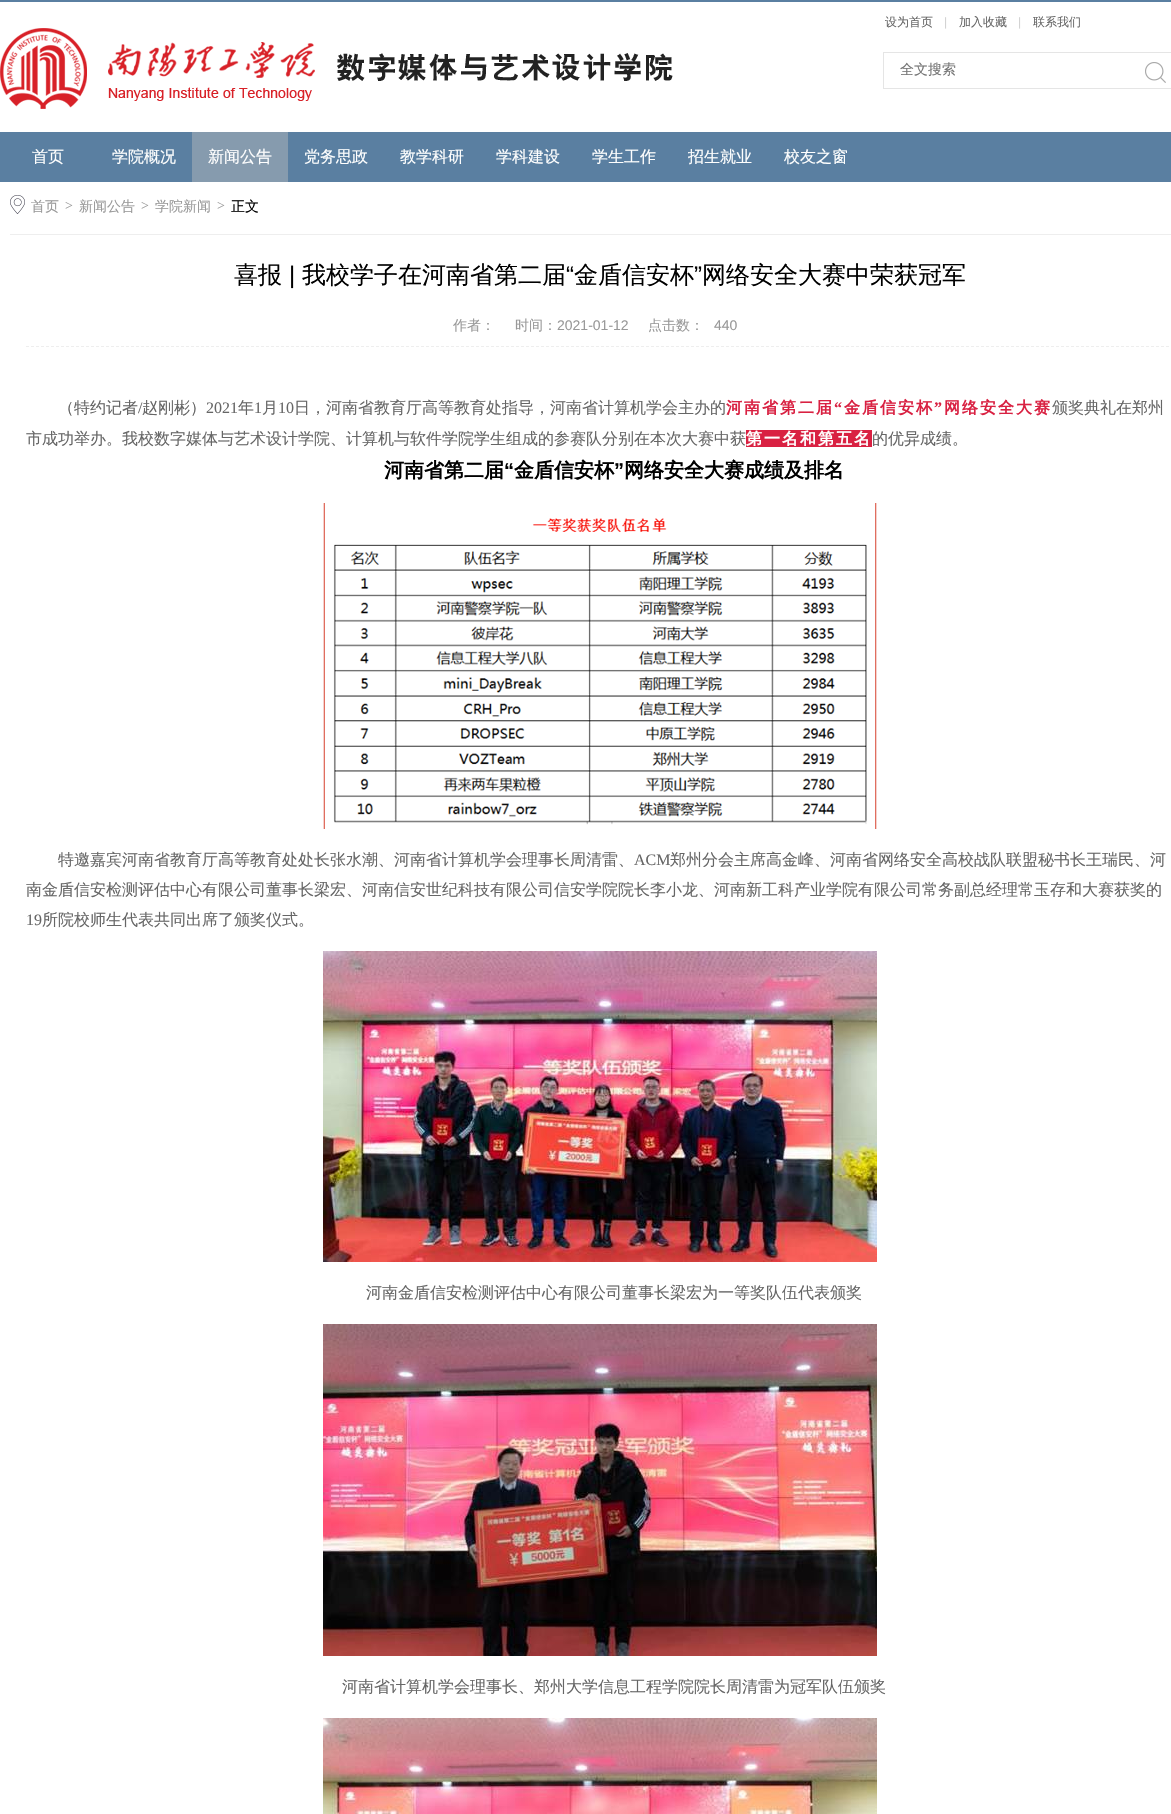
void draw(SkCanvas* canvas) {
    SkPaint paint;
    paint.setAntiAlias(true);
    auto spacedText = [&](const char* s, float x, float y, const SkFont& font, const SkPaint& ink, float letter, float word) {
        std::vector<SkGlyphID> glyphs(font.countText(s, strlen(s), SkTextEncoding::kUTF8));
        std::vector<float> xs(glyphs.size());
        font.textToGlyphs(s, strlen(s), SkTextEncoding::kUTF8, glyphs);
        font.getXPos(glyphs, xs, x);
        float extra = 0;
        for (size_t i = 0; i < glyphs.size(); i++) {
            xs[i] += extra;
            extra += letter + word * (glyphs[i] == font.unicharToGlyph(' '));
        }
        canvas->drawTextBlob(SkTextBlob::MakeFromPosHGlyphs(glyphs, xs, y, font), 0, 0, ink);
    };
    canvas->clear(0xFFFFFFFF);
    paint.setColor(0xFF5A7FA1);
    canvas->drawRect(SkRect::MakeXYWH(0, 0, 1171, 2), paint);
    canvas->drawImageRect(SkImages::DeferredFromEncodedData(SkData::MakeFromFileName("img1.png")), SkRect::MakeXYWH(0, 28, 673, 81), SkSamplingOptions());
    SkFont font1(fontMgr->matchFamilyStyle("WenQuanYi Zen Hei", SkFontStyle(500, SkFontStyle::kNormal_Width, SkFontStyle::kUpright_Slant)), 12);
    font1.setSubpixel(true);
    paint.setColor(0xFF666666);
    canvas->drawString("设为首页", 885, 26, font1, paint);
    SkFont font2(fontMgr->matchFamilyStyle("Liberation Sans", SkFontStyle::Normal()), 12);
    font2.setSubpixel(true);
    paint.setColor(0xFFD1D1D1);
    canvas->drawString("|", 944, 26, font2, paint);
    paint.setColor(0xFF666666);
    canvas->drawString("加入收藏", 959, 26, font1, paint);
    paint.setColor(0xFFD1D1D1);
    canvas->drawString("|", 1018, 26, font2, paint);
    paint.setColor(0xFF666666);
    canvas->drawString("联系我们", 1033, 26, font1, paint);
    paint.setStyle(SkPaint::kStroke_Style);
    paint.setStrokeWidth(1);
    paint.setColor(0xFFE5E5E5);
    canvas->drawRect(SkRect::MakeXYWH(883.5f, 52.5f, 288, 36), paint);
    SkFont font3(fontMgr->matchFamilyStyle("WenQuanYi Zen Hei", SkFontStyle(500, SkFontStyle::kNormal_Width, SkFontStyle::kUpright_Slant)), 14);
    font3.setSubpixel(true);
    paint.setStyle(SkPaint::kFill_Style);
    paint.setColor(0xFF757575);
    canvas->drawString("全文搜索", 900, 74, font3, paint);
    canvas->drawImageRect(SkImages::DeferredFromEncodedData(SkData::MakeFromFileName("img2.png")), SkRect::MakeXYWH(1145, 62, 21, 21), SkSamplingOptions());
    paint.setColor(0xFF5A7FA1);
    canvas->drawRect(SkRect::MakeXYWH(0, 132, 1171, 50), paint);
    SkFont font4(fontMgr->matchFamilyStyle("WenQuanYi Zen Hei", SkFontStyle(500, SkFontStyle::kNormal_Width, SkFontStyle::kUpright_Slant)), 16);
    font4.setSubpixel(true);
    paint.setColor(0xFFFFFFFF);
    canvas->drawString("首页", 32, 162, font4, paint);
    canvas->drawString("学院概况", 112, 162, font4, paint);
    paint.setColor(0xFF869BAE);
    canvas->drawRect(SkRect::MakeXYWH(192, 132, 96, 50), paint);
    paint.setColor(0xFFFFFFFF);
    canvas->drawString("新闻公告", 208, 162, font4, paint);
    canvas->drawString("党务思政", 304, 162, font4, paint);
    canvas->drawString("教学科研", 400, 162, font4, paint);
    canvas->drawString("学科建设", 496, 162, font4, paint);
    canvas->drawString("学生工作", 592, 162, font4, paint);
    canvas->drawString("招生就业", 688, 162, font4, paint);
    canvas->drawString("校友之窗", 784, 162, font4, paint);
    canvas->drawImageRect(SkImages::DeferredFromEncodedData(SkData::MakeFromFileName("img3.png")), SkRect::MakeXYWH(10, 195, 15, 19), SkSamplingOptions());
    paint.setColor(0xFF999999);
    canvas->drawString("首页", 31, 211, font3, paint);
    SkFont font5(fontMgr->matchFamilyStyle("Liberation Serif", SkFontStyle::Normal()), 14);
    font5.setSubpixel(true);
    canvas->drawString(">", 65, 210, font5, paint);
    canvas->drawString("新闻公告", 79, 211, font3, paint);
    canvas->drawString(">", 141, 210, font5, paint);
    canvas->drawString("学院新闻", 155, 211, font3, paint);
    canvas->drawString(">", 217, 210, font5, paint);
    paint.setColor(0xFF000000);
    canvas->drawString("正文", 231, 211, font3, paint);
    paint.setColor(0xFFEEEEEE);
    canvas->drawRect(SkRect::MakeXYWH(10, 234, 1161, 1), paint);
    SkFont font6(fontMgr->matchFamilyStyle("WenQuanYi Zen Hei", SkFontStyle(500, SkFontStyle::kNormal_Width, SkFontStyle::kUpright_Slant)), 24);
    font6.setSubpixel(true);
    paint.setColor(0xFF000000);
    canvas->drawString("喜报", 234, 283, font6, paint);
    SkFont font7(fontMgr->matchFamilyStyle("Liberation Sans", SkFontStyle::Normal()), 24);
    font7.setSubpixel(true);
    canvas->drawString("|", 289, 283, font7, paint);
    canvas->drawString("我校学子在河南省第二届", 302, 283, font6, paint);
    canvas->drawString("“", 566, 283, font7, paint);
    canvas->drawString("金盾信安杯", 574, 283, font6, paint);
    canvas->drawString("”", 694, 283, font7, paint);
    canvas->drawString("网络安全大赛中荣获冠军", 702, 283, font6, paint);
    paint.setStyle(SkPaint::kStroke_Style);
    paint.setColor(0xFFEEEEEE);
    paint.setPathEffect(SkDashPathEffect::Make({{3, 2}}, 0));
    canvas->drawPath(SkPathBuilder().moveTo(26, 346.5f).lineTo(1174, 346.5f).detach(), paint);
    paint.setPathEffect(nullptr);
    paint.setStyle(SkPaint::kFill_Style);
    paint.setColor(0xFF999999);
    canvas->drawString("作者：", 453, 330, font3, paint);
    canvas->drawString("时间：", 515, 330, font3, paint);
    SkFont font8(fontMgr->matchFamilyStyle("Liberation Sans", SkFontStyle::Normal()), 14);
    font8.setSubpixel(true);
    canvas->drawString("2021-01-12", 557, 330, font8, paint);
    canvas->drawString("点击数：", 648, 330, font3, paint);
    canvas->drawString("440", 714, 330, font8, paint);
    paint.setColor(0xFF666666);
    canvas->drawString("（特约记者", 58, 413, font4, paint);
    SkFont font9(fontMgr->matchFamilyStyle("Liberation Serif", SkFontStyle::Normal()), 16);
    font9.setSubpixel(true);
    canvas->drawString("/", 138, 413, font9, paint);
    canvas->drawString("赵刚彬）", 142, 413, font4, paint);
    canvas->drawString("2021", 206, 413, font9, paint);
    canvas->drawString("年", 238, 413, font4, paint);
    canvas->drawString("1", 254, 413, font9, paint);
    canvas->drawString("月", 262, 413, font4, paint);
    canvas->drawString("10", 278, 413, font9, paint);
    canvas->drawString("日，河南省教育厅高等教育处指导，河南省计算机学会主办的", 294, 413, font4, paint);
    SkFont font10(fontMgr->matchFamilyStyle("WenQuanYi Zen Hei", SkFontStyle::Bold()), 16);
    font10.setSubpixel(true);
    paint.setColor(0xFFD92142);
    spacedText("河南省第二届", 726, 413, font10, paint, 2, 0);
    SkFont font11(fontMgr->matchFamilyStyle("Liberation Serif", SkFontStyle::Bold()), 16);
    font11.setSubpixel(true);
    spacedText("“", 834, 413, font11, paint, 2, 0);
    spacedText("金盾信安杯", 844, 413, font10, paint, 2, 0);
    spacedText("”", 934, 413, font11, paint, 2, 0);
    spacedText("网络安全大赛", 944, 413, font10, paint, 2, 0);
    paint.setColor(0xFF666666);
    canvas->drawString("颁奖典礼在郑州", 1052, 413, font4, paint);
    canvas->drawString("市成功举办。我校数字媒体与艺术设计学院、计算机与软件学院学生组成的参赛队分别在本次大赛中获", 26, 444, font4, paint);
    paint.setColor(0xFFD92142);
    canvas->drawRect(SkRect::MakeXYWH(746, 430, 126, 17), paint);
    paint.setColor(0xFFFFFFFF);
    spacedText("第一名和第五名", 746, 444, font10, paint, 2, 0);
    paint.setColor(0xFF666666);
    canvas->drawString("的优异成绩。", 872, 444, font4, paint);
    SkFont font12(fontMgr->matchFamilyStyle("WenQuanYi Zen Hei", SkFontStyle::Bold()), 20);
    font12.setSubpixel(true);
    paint.setColor(0xFF000000);
    canvas->drawString("河南省第二届", 384, 477, font12, paint);
    SkFont font13(fontMgr->matchFamilyStyle("Liberation Sans", SkFontStyle::Bold()), 20);
    font13.setSubpixel(true);
    canvas->drawString("“", 504, 477, font13, paint);
    canvas->drawString("金盾信安杯", 514, 477, font12, paint);
    canvas->drawString("”", 614, 477, font13, paint);
    canvas->drawString("网络安全大赛成绩及排名", 624, 477, font12, paint);
    canvas->drawImageRect(SkImages::DeferredFromEncodedData(SkData::MakeFromFileName("img4.png")), SkRect::MakeXYWH(323, 503, 554, 326), SkSamplingOptions());
    paint.setColor(0xFF666666);
    canvas->drawString("特邀嘉宾河南省教育厅高等教育处处长张水潮、河南省计算机学会理事长周清雷、", 58, 865, font4, paint);
    canvas->drawString("ACM", 634, 865, font9, paint);
    canvas->drawString("郑州分会主席高金峰、河南省网络安全高校战队联盟秘书长王瑞民、河", 670, 865, font4, paint);
    canvas->drawString("南金盾信安检测评估中心有限公司董事长梁宏、河南信安世纪科技有限公司信安学院院长李小龙、河南新工科产业学院有限公司常务副总经理常玉存和大赛获奖的", 26, 895, font4, paint);
    canvas->drawString("19", 26, 925, font9, paint);
    canvas->drawString("所院校师生代表共同出席了颁奖仪式。", 42, 925, font4, paint);
    canvas->drawImageRect(SkImages::DeferredFromEncodedData(SkData::MakeFromFileName("img5.png")), SkRect::MakeXYWH(323, 951, 554, 311), SkSamplingOptions());
    canvas->drawString("河南金盾信安检测评估中心有限公司董事长梁宏为一等奖队伍代表颁奖", 366, 1298, font4, paint);
    canvas->drawImageRect(SkImages::DeferredFromEncodedData(SkData::MakeFromFileName("img6.png")), SkRect::MakeXYWH(323, 1324, 554, 332), SkSamplingOptions());
    canvas->drawString("河南省计算机学会理事长、郑州大学信息工程学院院长周清雷为冠军队伍颁奖", 342, 1692, font4, paint);
    canvas->drawImageRect(SkImages::DeferredFromEncodedData(SkData::MakeFromFileName("img7.png")), SkRect::MakeXYWH(323, 1718, 554, 96), SkSamplingOptions());
}
